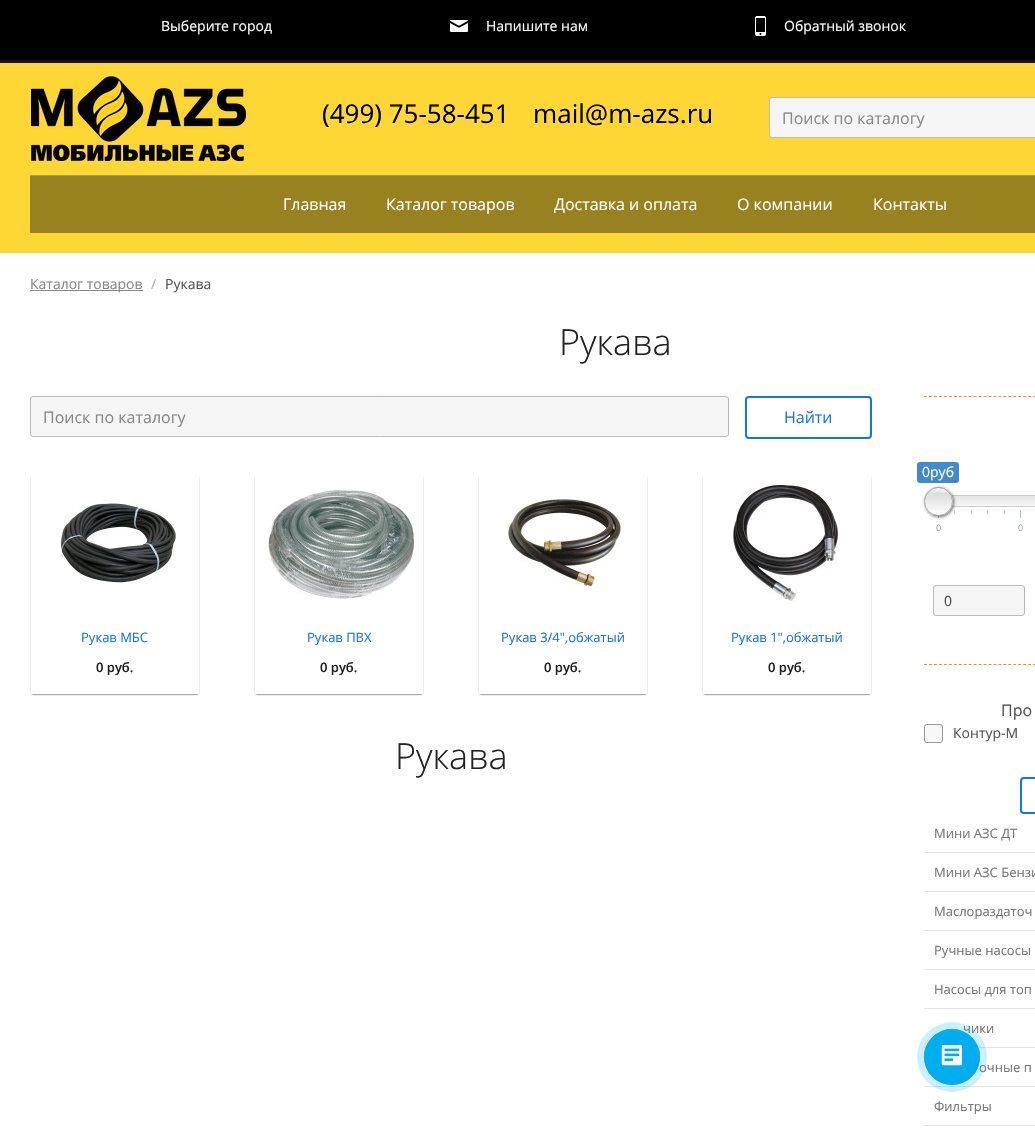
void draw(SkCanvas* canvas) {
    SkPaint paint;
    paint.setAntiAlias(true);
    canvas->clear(0xFFFFFFFF);
    paint.setColor(0xFF000000);
    canvas->drawRect(SkRect::MakeXYWH(0, 0, 1035, 60), paint);
    SkFont font1(fontMgr->matchFamilyStyle("Open Sans", SkFontStyle::Normal()), 14);
    font1.setSubpixel(true);
    paint.setColor(0xFFFFFFFF);
    canvas->drawString("Выберите город", 161, 31, font1, paint);
    canvas->drawImageRect(SkImages::DeferredFromEncodedData(SkData::MakeFromFileName("img1.png")), SkRect::MakeXYWH(450, 20, 18, 12), SkSamplingOptions());
    canvas->drawString("Напишите нам", 486, 31, font1, paint);
    canvas->drawImageRect(SkImages::DeferredFromEncodedData(SkData::MakeFromFileName("img2.png")), SkRect::MakeXYWH(755, 16, 11, 20), SkSamplingOptions());
    canvas->drawString("Обратный звонок", 784, 31, font1, paint);
    canvas->drawImageRect(SkImages::DeferredFromEncodedData(SkData::MakeFromFileName("img3.png")), SkRect::MakeXYWH(0, 60, 1035, 193), SkSamplingOptions());
    canvas->drawImageRect(SkImages::DeferredFromEncodedData(SkData::MakeFromFileName("img4.png")), SkRect::MakeXYWH(31, 76, 215, 85), SkSamplingOptions());
    SkFont font2(fontMgr->matchFamilyStyle("Open Sans", SkFontStyle::Normal()), 26);
    font2.setSubpixel(true);
    paint.setColor(0xFF000000);
    canvas->drawString("(499) 75-58-451", 322, 123, font2, paint);
    canvas->drawString("mail@m-azs.ru", 533, 123, font2, paint);
    paint.setColor(0xFFF5F5F5);
    canvas->drawRoundRect(SkRect::MakeXYWH(769.5f, 97.5f, 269, 40), 2.5f, 2.5f, paint);
    paint.setStyle(SkPaint::kStroke_Style);
    paint.setStrokeWidth(1);
    paint.setColor(0xFFBBBBBB);
    canvas->drawRoundRect(SkRect::MakeXYWH(769.5f, 97.5f, 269, 40), 2.5f, 2.5f, paint);
    SkFont font3(fontMgr->matchFamilyStyle("Open Sans", SkFontStyle::Normal()), 16);
    font3.setSubpixel(true);
    paint.setStyle(SkPaint::kFill_Style);
    paint.setColor(0xFF888888);
    canvas->drawString("Поиск по каталогу", 782, 124, font3, paint);
    paint.setColor(0xFF98811F);
    canvas->drawRect(SkRect::MakeXYWH(30, 176, 1005, 57), paint);
    paint.setColor(0xFFAD9A4C);
    canvas->drawRect(SkRect::MakeXYWH(30, 175, 1005, 1), paint);
    paint.setColor(0xFFFFFFFF);
    canvas->drawString("Главная", 283, 210, font3, paint);
    canvas->drawString("Каталог товаров", 386, 210, font3, paint);
    canvas->drawString("Доставка и оплата", 554, 210, font3, paint);
    canvas->drawString("О компании", 737, 210, font3, paint);
    canvas->drawString("Контакты", 873, 210, font3, paint);
    paint.setColor(0xFF888888);
    canvas->drawRect(SkRect::MakeXYWH(30, 290, 113, 1), paint);
    canvas->drawString("Каталог товаров", 30, 289, font1, paint);
    paint.setColor(0xFFB3B3B3);
    canvas->drawString("/", 151, 289, font1, paint);
    paint.setColor(0xFF555555);
    canvas->drawString("Рукава", 165, 289, font1, paint);
    SkFont font4(fontMgr->matchFamilyStyle("Open Sans", SkFontStyle(300, SkFontStyle::kNormal_Width, SkFontStyle::kUpright_Slant)), 36);
    font4.setSubpixel(true);
    paint.setColor(0xFF222222);
    canvas->drawString("Рукава", 559, 355, font4, paint);
    paint.setColor(0xFFF5F5F5);
    canvas->drawRoundRect(SkRect::MakeXYWH(30.5f, 396.5f, 698, 40), 2.5f, 2.5f, paint);
    paint.setStyle(SkPaint::kStroke_Style);
    paint.setColor(0xFFBBBBBB);
    canvas->drawRoundRect(SkRect::MakeXYWH(30.5f, 396.5f, 698, 40), 2.5f, 2.5f, paint);
    paint.setStyle(SkPaint::kFill_Style);
    paint.setColor(0xFF888888);
    canvas->drawString("Поиск по каталогу", 43, 423, font3, paint);
    paint.setStyle(SkPaint::kStroke_Style);
    paint.setStrokeWidth(2);
    paint.setColor(0xFF1277E8);
    canvas->drawRoundRect(SkRect::MakeXYWH(746, 397, 125, 41), 3, 3, paint);
    paint.setStyle(SkPaint::kFill_Style);
    canvas->drawString("Найти", 784, 423, font3, paint);
    canvas->save();
    canvas->clipPath(SkPathBuilder(SkPathFillType::kEvenOdd).moveTo(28, 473).lineTo(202, 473).lineTo(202, 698).lineTo(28, 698).close().moveTo(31, 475).lineTo(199, 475).lineTo(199, 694).lineTo(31, 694).close().detach(), true);
    paint.setColor(0xFF000000);
    paint.setMaskFilter(SkMaskFilter::MakeBlur(kNormal_SkBlurStyle, 1));
    canvas->drawRect(SkRect::MakeXYWH(32, 477, 166, 217), paint);
    paint.setMaskFilter(nullptr);
    canvas->restore();
    canvas->drawImageRect(SkImages::DeferredFromEncodedData(SkData::MakeFromFileName("img5.png")), SkRect::MakeXYWH(61, 499, 117, 84), SkSamplingOptions());
    SkFont font5(fontMgr->matchFamilyStyle("Open Sans", SkFontStyle::Normal()), 13);
    font5.setSubpixel(true);
    paint.setColor(0xFF1277E8);
    canvas->drawString("Рукав МБС", 81, 642, font5, paint);
    SkFont font6(fontMgr->matchFamilyStyle("Open Sans", SkFontStyle(600, SkFontStyle::kNormal_Width, SkFontStyle::kUpright_Slant)), 13);
    font6.setSubpixel(true);
    paint.setColor(0xFF222222);
    canvas->drawString("0 руб.", 96, 672, font6, paint);
    canvas->save();
    canvas->clipPath(SkPathBuilder(SkPathFillType::kEvenOdd).moveTo(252, 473).lineTo(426, 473).lineTo(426, 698).lineTo(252, 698).close().moveTo(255, 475).lineTo(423, 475).lineTo(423, 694).lineTo(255, 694).close().detach(), true);
    paint.setColor(0xFF000000);
    paint.setMaskFilter(SkMaskFilter::MakeBlur(kNormal_SkBlurStyle, 1));
    canvas->drawRect(SkRect::MakeXYWH(256, 477, 166, 217), paint);
    paint.setMaskFilter(nullptr);
    canvas->restore();
    canvas->drawImageRect(SkImages::DeferredFromEncodedData(SkData::MakeFromFileName("img6.png")), SkRect::MakeXYWH(267, 490, 150, 109), SkSamplingOptions());
    paint.setColor(0xFF1277E8);
    canvas->drawString("Рукав ПВХ", 307, 642, font5, paint);
    paint.setColor(0xFF222222);
    canvas->drawString("0 руб.", 320, 672, font6, paint);
    canvas->save();
    canvas->clipPath(SkPathBuilder(SkPathFillType::kEvenOdd).moveTo(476, 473).lineTo(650, 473).lineTo(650, 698).lineTo(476, 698).close().moveTo(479, 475).lineTo(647, 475).lineTo(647, 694).lineTo(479, 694).close().detach(), true);
    paint.setColor(0xFF000000);
    paint.setMaskFilter(SkMaskFilter::MakeBlur(kNormal_SkBlurStyle, 1));
    canvas->drawRect(SkRect::MakeXYWH(480, 477, 166, 217), paint);
    paint.setMaskFilter(nullptr);
    canvas->restore();
    canvas->drawImageRect(SkImages::DeferredFromEncodedData(SkData::MakeFromFileName("img7.png")), SkRect::MakeXYWH(506, 499, 116, 94), SkSamplingOptions());
    paint.setColor(0xFF1277E8);
    canvas->drawString("Рукав 3/4\",обжатый", 501, 642, font5, paint);
    paint.setColor(0xFF222222);
    canvas->drawString("0 руб.", 544, 672, font6, paint);
    canvas->save();
    canvas->clipPath(SkPathBuilder(SkPathFillType::kEvenOdd).moveTo(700, 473).lineTo(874, 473).lineTo(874, 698).lineTo(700, 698).close().moveTo(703, 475).lineTo(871, 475).lineTo(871, 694).lineTo(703, 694).close().detach(), true);
    paint.setColor(0xFF000000);
    paint.setMaskFilter(SkMaskFilter::MakeBlur(kNormal_SkBlurStyle, 1));
    canvas->drawRect(SkRect::MakeXYWH(704, 477, 166, 217), paint);
    paint.setMaskFilter(nullptr);
    canvas->restore();
    canvas->drawImageRect(SkImages::DeferredFromEncodedData(SkData::MakeFromFileName("img8.png")), SkRect::MakeXYWH(733, 484, 134, 119), SkSamplingOptions());
    paint.setColor(0xFF1277E8);
    canvas->drawString("Рукав 1\",обжатый", 731, 642, font5, paint);
    paint.setColor(0xFF222222);
    canvas->drawString("0 руб.", 768, 672, font6, paint);
    canvas->drawString("Рукава", 395, 769, font4, paint);
    paint.setStyle(SkPaint::kStroke_Style);
    paint.setStrokeWidth(1);
    paint.setColor(0xFFFF8A00);
    paint.setPathEffect(SkDashPathEffect::Make({{3, 1.96f}}, 0));
    canvas->drawPath(SkPathBuilder().moveTo(924, 396.5f).lineTo(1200, 396.5f).detach(), paint);
    paint.setPathEffect(nullptr);
    paint.setPathEffect(SkDashPathEffect::Make({{3, 1.96f}}, 0));
    canvas->drawPath(SkPathBuilder().moveTo(924, 664.5f).lineTo(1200, 664.5f).detach(), paint);
    paint.setPathEffect(nullptr);
    paint.setStyle(SkPaint::kFill_Style);
    paint.setColor(0xFF428BCA);
    canvas->drawRoundRect(SkRect::MakeXYWH(917, 462, 42, 21), 3, 3, paint);
    paint.setColor(0xFFFFFFFF);
    canvas->drawString("0руб", 922, 477, font1, paint);
    canvas->save();
    canvas->clipPath(SkPathBuilder().moveTo(930, 495).lineTo(1194, 495).cubicTo(1197.5f, 495, 1200, 497.5f, 1200, 501).cubicTo(1200, 504.5f, 1197.5f, 507, 1194, 507).lineTo(930, 507).cubicTo(926.5f, 507, 924, 504.5f, 924, 501).cubicTo(924, 497.5f, 926.5f, 495, 930, 495).close().detach(), true);
    {
        const SkColor colors[] = {0xFFDDDDDD, 0xFFFFFFFF};
        const float stops[] = {0, 1};
        const SkPoint ends[] = {{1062, 491}, {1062, 511}};
        paint.setShader(SkGradientShader::MakeLinear(ends, colors, stops, 2, SkTileMode::kClamp));
        paint.setAlpha(255);
    }
    canvas->drawRect(SkRect::MakeXYWH(924, 496, 111, 10), paint);
    canvas->restore();
    paint.setStyle(SkPaint::kStroke_Style);
    paint.setShader(nullptr);
    paint.setColor(0xFFCCCCCC);
    canvas->drawRoundRect(SkRect::MakeXYWH(924.5f, 495.5f, 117, 11), 5.5f, 5.5f, paint);
    paint.setStyle(SkPaint::kFill_Style);
    paint.setColor(0xFFA1C5E5);
    canvas->drawRect(SkRect::MakeXYWH(938, 510, 1, 8), paint);
    paint.setColor(0xFFCCCCCC);
    canvas->drawRect(SkRect::MakeXYWH(954, 510, 1, 4), paint);
    paint.setColor(0x4D000000);
    paint.setMaskFilter(SkMaskFilter::MakeBlur(kNormal_SkBlurStyle, 1.5f));
    canvas->drawRoundRect(SkRect::MakeXYWH(925, 488, 29, 29), 14.5f, 14.5f, paint);
    paint.setMaskFilter(nullptr);
    paint.setStyle(SkPaint::kStroke_Style);
    paint.setColor(0xFFAAAAAA);
    canvas->drawCircle(938.5f, 501.5f, 14, paint);
    paint.setStyle(SkPaint::kFill_Style);
    paint.setColor(0x4D000000);
    paint.setMaskFilter(SkMaskFilter::MakeBlur(kNormal_SkBlurStyle, 1.5f));
    canvas->drawRoundRect(SkRect::MakeXYWH(925, 488, 29, 29), 14.5f, 14.5f, paint);
    paint.setMaskFilter(nullptr);
    canvas->save();
    canvas->clipPath(SkPathBuilder().moveTo(938.5f, 487).cubicTo(946.5f, 487, 953, 493.5f, 953, 501.5f).cubicTo(953, 509.5f, 946.5f, 516, 938.5f, 516).cubicTo(930.5f, 516, 924, 509.5f, 924, 501.5f).cubicTo(924, 493.5f, 930.5f, 487, 938.5f, 487).close().detach(), true);
    {
        const SkColor colors[] = {0xFFFFFFFF, 0xFFDCDCDC, 0xFFFFFFFF};
        const float stops[] = {0, 0.2f, 1};
        const SkPoint ends[] = {{939, 488}, {939, 515}};
        paint.setShader(SkGradientShader::MakeLinear(ends, colors, stops, 3, SkTileMode::kClamp));
        paint.setAlpha(255);
    }
    canvas->drawRect(SkRect::MakeXYWH(924, 488, 29, 27), paint);
    canvas->restore();
    paint.setStyle(SkPaint::kStroke_Style);
    paint.setShader(nullptr);
    paint.setColor(0xFFAAAAAA);
    canvas->drawCircle(938.5f, 501.5f, 14, paint);
    paint.setStyle(SkPaint::kFill_Style);
    paint.setColor(0xFFCCCCCC);
    canvas->drawRect(SkRect::MakeXYWH(971, 510, 1, 4), paint);
    canvas->drawRect(SkRect::MakeXYWH(987, 510, 1, 4), paint);
    canvas->drawRect(SkRect::MakeXYWH(1004, 510, 1, 4), paint);
    paint.setColor(0xFFA1C5E5);
    canvas->drawRect(SkRect::MakeXYWH(1020, 510, 1, 8), paint);
    SkFont font7(fontMgr->matchFamilyStyle("Open Sans", SkFontStyle::Normal()), 9);
    font7.setSubpixel(true);
    paint.setColor(0xFF99A4AC);
    canvas->drawString("0", 936, 531, font7, paint);
    canvas->drawString("0", 1018, 531, font7, paint);
    paint.setColor(0xFFF5F5F5);
    canvas->drawRoundRect(SkRect::MakeXYWH(933.5f, 585.5f, 91, 30), 2.5f, 2.5f, paint);
    paint.setStyle(SkPaint::kStroke_Style);
    paint.setColor(0xFFBBBBBB);
    canvas->drawRoundRect(SkRect::MakeXYWH(933.5f, 585.5f, 91, 30), 2.5f, 2.5f, paint);
    paint.setStyle(SkPaint::kFill_Style);
    paint.setColor(0xFF444444);
    canvas->drawString("0", 944, 606, font1, paint);
    paint.setColor(0xFF555555);
    canvas->drawString("Про", 1001, 716, font3, paint);
    paint.setColor(0xFFF8F8F8);
    canvas->drawRoundRect(SkRect::MakeXYWH(924.5f, 724.5f, 18, 18), 2.5f, 2.5f, paint);
    paint.setStyle(SkPaint::kStroke_Style);
    paint.setColor(0xFF999999);
    canvas->drawRoundRect(SkRect::MakeXYWH(924.5f, 724.5f, 18, 18), 2.5f, 2.5f, paint);
    paint.setStyle(SkPaint::kFill_Style);
    paint.setColor(0xFF555555);
    canvas->drawString("Контур-М", 953, 738, font1, paint);
    paint.setStyle(SkPaint::kStroke_Style);
    paint.setStrokeWidth(2);
    paint.setColor(0xFF1277E8);
    canvas->drawRoundRect(SkRect::MakeXYWH(1021, 778, 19, 35), 3, 3, paint);
    paint.setStyle(SkPaint::kFill_Style);
    paint.setColor(0xFF777777);
    canvas->drawString("Мини АЗС ДТ", 934, 838, font5, paint);
    paint.setColor(0xFFE5E5E5);
    canvas->drawRect(SkRect::MakeXYWH(924, 852, 111, 1), paint);
    paint.setColor(0xFF777777);
    canvas->drawString("Мини АЗС Бензи", 934, 877, font5, paint);
    paint.setColor(0xFFE5E5E5);
    canvas->drawRect(SkRect::MakeXYWH(924, 891, 111, 1), paint);
    paint.setColor(0xFF777777);
    canvas->drawString("Маслораздаточ", 934, 916, font5, paint);
    paint.setColor(0xFFE5E5E5);
    canvas->drawRect(SkRect::MakeXYWH(924, 930, 111, 1), paint);
    paint.setColor(0xFF777777);
    canvas->drawString("Ручные насосы", 934, 955, font5, paint);
    paint.setColor(0xFFE5E5E5);
    canvas->drawRect(SkRect::MakeXYWH(924, 969, 111, 1), paint);
    paint.setColor(0xFF777777);
    canvas->drawString("Насосы для топ", 934, 994, font5, paint);
    paint.setColor(0xFFE5E5E5);
    canvas->drawRect(SkRect::MakeXYWH(924, 1008, 111, 1), paint);
    paint.setColor(0xFF777777);
    canvas->drawString("чики", 963, 1033, font5, paint);
    paint.setColor(0xFFE5E5E5);
    canvas->drawRect(SkRect::MakeXYWH(924, 1047, 111, 1), paint);
    paint.setColor(0xFF777777);
    canvas->drawString("очные п", 979, 1072, font5, paint);
    paint.setColor(0xFFE5E5E5);
    canvas->drawRect(SkRect::MakeXYWH(924, 1086, 111, 1), paint);
    paint.setColor(0xFF777777);
    canvas->drawString("Фильтры", 934, 1111, font5, paint);
    paint.setColor(0xFFE5E5E5);
    canvas->drawRect(SkRect::MakeXYWH(924, 1125, 111, 1), paint);
    paint.setColor(0x3300AEEF);
    canvas->drawCircle(952, 1057, 35, paint);
    paint.setStyle(SkPaint::kStroke_Style);
    paint.setStrokeWidth(0.8f);
    paint.setColor(0xFF00AEEF);
    canvas->drawCircle(952, 1057, 27.6f, paint);
    paint.setStyle(SkPaint::kFill_Style);
    canvas->drawCircle(952, 1057, 28, paint);
    canvas->drawImageRect(SkImages::DeferredFromEncodedData(SkData::MakeFromFileName("img9.png")), SkRect::MakeXYWH(941, 1045, 21, 21), SkSamplingOptions());
}
